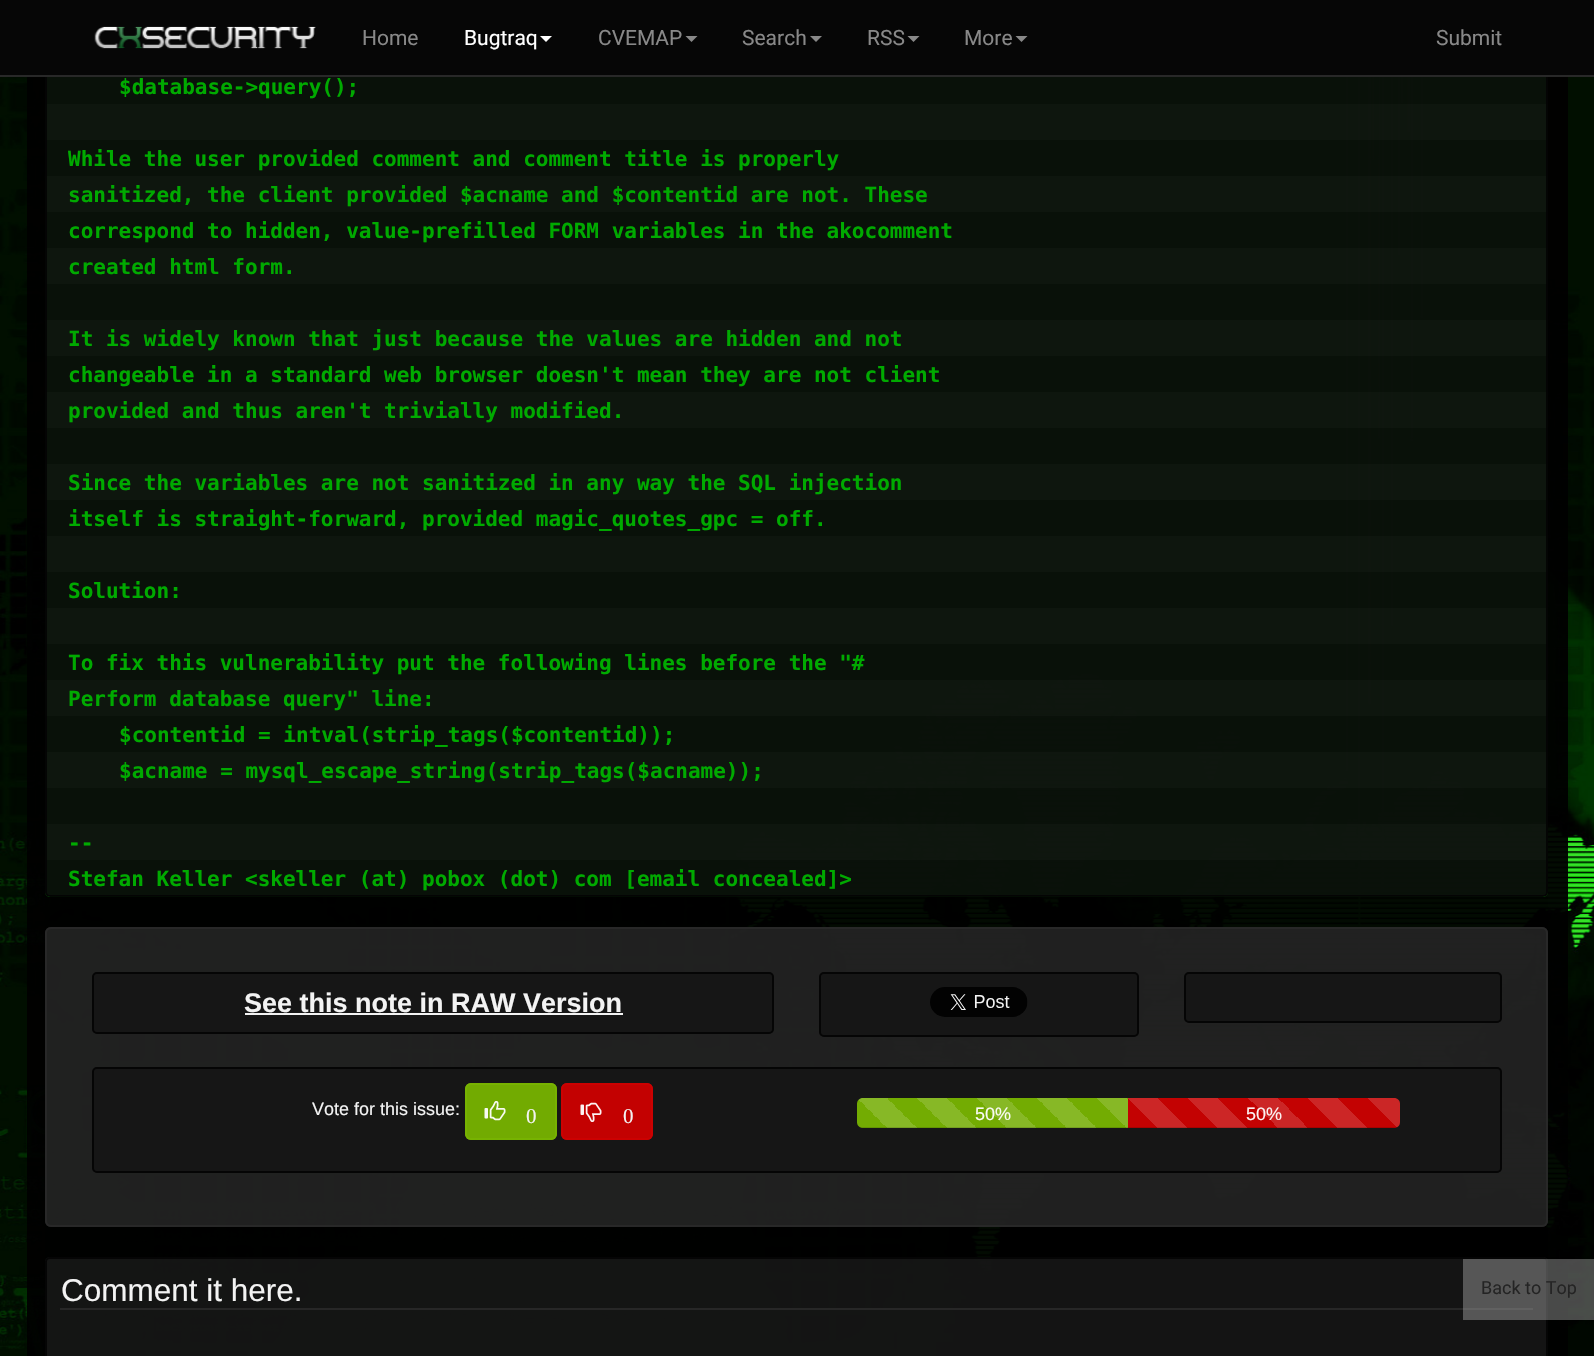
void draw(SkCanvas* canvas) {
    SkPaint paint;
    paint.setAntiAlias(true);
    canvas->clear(0xFFFFFFFF);
    canvas->drawImageRect(SkImages::DeferredFromEncodedData(SkData::MakeFromFileName("img1.png")), SkRect::MakeXYWH(0, 77, 1594, 1279), SkSamplingOptions());
    paint.setColor(0xF2009900);
    canvas->drawRoundRect(SkRect::MakeXYWH(45, -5, 1503, 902), 5, 5, paint);
    canvas->drawImageRect(SkImages::DeferredFromEncodedData(SkData::MakeFromFileName("img3.png")), SkRect::MakeXYWH(45, 77, 1503, 819), SkSamplingOptions());
    paint.setStyle(SkPaint::kStroke_Style);
    paint.setStrokeWidth(2);
    paint.setColor(0xF2030303);
    canvas->drawRoundRect(SkRect::MakeXYWH(46, -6, 1501, 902), 4, 4, paint);
    paint.setStyle(SkPaint::kFill_Style);
    paint.setColor(0xFF060606);
    canvas->drawRect(SkRect::MakeXYWH(0, 0, 1594, 75), paint);
    paint.setColor(0xFF282828);
    canvas->drawRect(SkRect::MakeXYWH(0, 75, 1594, 2), paint);
    canvas->drawImageRect(SkImages::DeferredFromEncodedData(SkData::MakeFromFileName("img2.png")), SkRect::MakeXYWH(94, 26, 222, 23), SkSamplingOptions());
    SkFont font1(fontMgr->matchFamilyStyle("Roboto", SkFontStyle::Normal()), 21);
    font1.setSubpixel(true);
    paint.setColor(0xFF888888);
    canvas->drawString("Home", 362, 45, font1, paint);
    paint.setColor(0xFFFFFFFF);
    canvas->drawString("Bugtraq", 464, 45, font1, paint);
    canvas->drawPath(SkPathBuilder().moveTo(540, 36).lineTo(552, 36).lineTo(546, 42).close().detach(), paint);
    paint.setColor(0xFF888888);
    canvas->drawString("CVEMAP", 598, 45, font1, paint);
    canvas->drawPath(SkPathBuilder().moveTo(685.5f, 36).lineTo(697.5f, 36).lineTo(691.5f, 42).close().detach(), paint);
    canvas->drawString("Search", 742, 45, font1, paint);
    canvas->drawPath(SkPathBuilder().moveTo(810, 36).lineTo(822, 36).lineTo(816, 42).close().detach(), paint);
    canvas->drawString("RSS", 867, 45, font1, paint);
    canvas->drawPath(SkPathBuilder().moveTo(907.5f, 36).lineTo(919.5f, 36).lineTo(913.5f, 42).close().detach(), paint);
    canvas->drawString("More", 964, 45, font1, paint);
    canvas->drawPath(SkPathBuilder().moveTo(1015.5f, 36).lineTo(1027.5f, 36).lineTo(1021.5f, 42).close().detach(), paint);
    canvas->drawString("Submit", 1436, 45, font1, paint);
    paint.setColor(0xF2000000);
    canvas->drawRect(SkRect::MakeXYWH(27, 77, 18, 1279), paint);
    SkFont font2(fontMgr->matchFamilyStyle("DejaVu Sans Mono", SkFontStyle::Bold()), 21);
    font2.setSubpixel(true);
    paint.setColor(0xFF00AA00);
    canvas->drawString("$database->query();", 119, 94, font2, paint);
    canvas->drawString("While the user provided comment and comment title is properly", 68, 166, font2, paint);
    canvas->drawString("sanitized, the client provided $acname and $contentid are not. These", 68, 202, font2, paint);
    canvas->drawString("correspond to hidden, value-prefilled FORM variables in the akocomment", 68, 238, font2, paint);
    canvas->drawString("created html form.", 68, 274, font2, paint);
    canvas->drawString("It is widely known that just because the values are hidden and not", 68, 346, font2, paint);
    canvas->drawString("changeable in a standard web browser doesn't mean they are not client", 68, 382, font2, paint);
    canvas->drawString("provided and thus aren't trivially modified.", 68, 418, font2, paint);
    canvas->drawString("Since the variables are not sanitized in any way the SQL injection", 68, 490, font2, paint);
    canvas->drawString("itself is straight-forward, provided magic_quotes_gpc = off.", 68, 526, font2, paint);
    canvas->drawString("Solution:", 68, 598, font2, paint);
    canvas->drawString("To fix this vulnerability put the following lines before the \"#", 68, 670, font2, paint);
    canvas->drawString("Perform database query\" line:", 68, 706, font2, paint);
    canvas->drawString("$contentid = intval(strip_tags($contentid));", 119, 742, font2, paint);
    canvas->drawString("$acname = mysql_escape_string(strip_tags($acname));", 119, 778, font2, paint);
    canvas->drawString("--", 68, 850, font2, paint);
    canvas->drawString("Stefan Keller <skeller (at) pobox (dot) com [email concealed]>", 68, 886, font2, paint);
    paint.setColor(0xF2222222);
    canvas->drawRoundRect(SkRect::MakeXYWH(45, 927, 1503, 300), 6, 6, paint);
    paint.setStyle(SkPaint::kStroke_Style);
    paint.setColor(0xF2282828);
    canvas->drawRoundRect(SkRect::MakeXYWH(46, 928, 1501, 298), 5, 5, paint);
    paint.setStyle(SkPaint::kFill_Style);
    paint.setColor(0xFF161616);
    canvas->drawRoundRect(SkRect::MakeXYWH(92, 972, 682, 62), 5, 5, paint);
    paint.setStyle(SkPaint::kStroke_Style);
    paint.setColor(0xF2030303);
    canvas->drawRoundRect(SkRect::MakeXYWH(93, 973, 680, 60), 4, 4, paint);
    SkFont font3(fontMgr->matchFamilyStyle("Liberation Sans", SkFontStyle::Bold()), 27);
    font3.setSubpixel(true);
    paint.setStyle(SkPaint::kFill_Style);
    paint.setColor(0xFFF3F3F3);
    canvas->drawString("See this note in RAW Version", 244, 1012, font3, paint);
    canvas->drawRect(SkRect::MakeXYWH(245, 1013, 378, 2), paint);
    paint.setColor(0xFF161616);
    canvas->drawRoundRect(SkRect::MakeXYWH(819, 972, 320, 65), 5, 5, paint);
    paint.setStyle(SkPaint::kStroke_Style);
    paint.setColor(0xF2030303);
    canvas->drawRoundRect(SkRect::MakeXYWH(820, 973, 318, 63), 4, 4, paint);
    canvas->drawImageRect(SkImages::DeferredFromEncodedData(SkData::MakeFromFileName("img4.png")), SkRect::MakeXYWH(930, 987, 98, 30), SkSamplingOptions());
    paint.setStyle(SkPaint::kFill_Style);
    paint.setColor(0xFF161616);
    canvas->drawRoundRect(SkRect::MakeXYWH(1184, 972, 318, 51), 5, 5, paint);
    paint.setStyle(SkPaint::kStroke_Style);
    paint.setColor(0xF2030303);
    canvas->drawRoundRect(SkRect::MakeXYWH(1185, 973, 316, 49), 4, 4, paint);
    paint.setStyle(SkPaint::kFill_Style);
    paint.setColor(0xFF161616);
    canvas->drawRoundRect(SkRect::MakeXYWH(92, 1067, 1410, 106), 5, 5, paint);
    paint.setStyle(SkPaint::kStroke_Style);
    paint.setColor(0xF2030303);
    canvas->drawRoundRect(SkRect::MakeXYWH(93, 1068, 1408, 104), 4, 4, paint);
    SkFont font4(fontMgr->matchFamilyStyle("Liberation Sans", SkFontStyle::Normal()), 18);
    font4.setSubpixel(true);
    paint.setStyle(SkPaint::kFill_Style);
    paint.setColor(0xFFF3F3F3);
    canvas->drawString("Vote for this issue:", 312, 1115, font4, paint);
    paint.setColor(0xFF72AB01);
    canvas->drawRoundRect(SkRect::MakeXYWH(465, 1083, 92, 57), 6, 6, paint);
    paint.setStyle(SkPaint::kStroke_Style);
    paint.setColor(0xF277B300);
    canvas->drawRoundRect(SkRect::MakeXYWH(466, 1084, 90, 55), 5, 5, paint);
    canvas->drawImageRect(SkImages::DeferredFromEncodedData(SkData::MakeFromFileName("img5.png")), SkRect::MakeXYWH(484, 1101, 22, 20), SkSamplingOptions());
    SkFont font5(fontMgr->matchFamilyStyle("Liberation Serif", SkFontStyle::Normal()), 21);
    font5.setSubpixel(true);
    paint.setStyle(SkPaint::kFill_Style);
    paint.setColor(0xFFF3F3F3);
    canvas->drawString("0", 526, 1123, font5, paint);
    paint.setColor(0xFFC30101);
    canvas->drawRoundRect(SkRect::MakeXYWH(561, 1083, 92, 57), 6, 6, paint);
    paint.setStyle(SkPaint::kStroke_Style);
    paint.setColor(0xF2CC0000);
    canvas->drawRoundRect(SkRect::MakeXYWH(562, 1084, 90, 55), 5, 5, paint);
    canvas->drawImageRect(SkImages::DeferredFromEncodedData(SkData::MakeFromFileName("img6.png")), SkRect::MakeXYWH(580, 1102, 22, 20), SkSamplingOptions());
    paint.setStyle(SkPaint::kFill_Style);
    paint.setColor(0xFFF3F3F3);
    canvas->drawString("0", 623, 1123, font5, paint);
    paint.setColor(0xFF73AC02);
    canvas->drawPath(SkPathBuilder().moveTo(863, 1098).lineTo(1128, 1098).lineTo(1128, 1128).lineTo(863, 1128).cubicTo(859.5f, 1128, 857, 1125.5f, 857, 1122).lineTo(857, 1104).cubicTo(857, 1100.5f, 859.5f, 1098, 863, 1098).close().detach(), paint);
    {
        const SkColor colors[] = {0x24FFFFFF, 0x00FFFFFF, 0x00FFFFFF, 0x24FFFFFF, 0x24FFFFFF, 0x00FFFFFF, 0x00000000};
        const float stops[] = {0.25f, 0.25f, 0.5f, 0.5f, 0.75f, 0.75f, 1};
        const SkPoint ends[] = {{857, 1158}, {917, 1098}};
        paint.setShader(SkGradientShader::MakeLinear(ends, colors, stops, 7, SkTileMode::kClamp));
        paint.setAlpha(255);
    }
    canvas->drawPath(SkPathBuilder().moveTo(863, 1098).lineTo(917, 1098).lineTo(917, 1128).lineTo(863, 1128).cubicTo(859.5f, 1128, 857, 1125.5f, 857, 1122).lineTo(857, 1104).cubicTo(857, 1100.5f, 859.5f, 1098, 863, 1098).close().detach(), paint);
    {
        const SkColor colors[] = {0xFF87B826, 0xFF73AC02, 0xFF73AC02, 0xFF87B826, 0xFF87B826, 0xFF73AC02, 0xFF73AC02};
        const float stops[] = {0.25f, 0.25f, 0.5f, 0.5f, 0.75f, 0.75f, 1};
        const SkPoint ends[] = {{917, 1158}, {977, 1098}};
        paint.setShader(SkGradientShader::MakeLinear(ends, colors, stops, 7, SkTileMode::kClamp));
        paint.setAlpha(255);
    }
    canvas->drawRect(SkRect::MakeXYWH(917, 1098, 60, 30), paint);
    {
        const SkColor colors[] = {0xFF87B826, 0xFF73AC02, 0xFF73AC02, 0xFF87B826, 0xFF87B826, 0xFF73AC02, 0xFF73AC02};
        const float stops[] = {0.25f, 0.25f, 0.5f, 0.5f, 0.75f, 0.75f, 1};
        const SkPoint ends[] = {{977, 1158}, {1037, 1098}};
        paint.setShader(SkGradientShader::MakeLinear(ends, colors, stops, 7, SkTileMode::kClamp));
        paint.setAlpha(255);
    }
    canvas->drawRect(SkRect::MakeXYWH(977, 1098, 60, 30), paint);
    {
        const SkColor colors[] = {0xFF87B826, 0xFF73AC02, 0xFF73AC02, 0xFF87B826, 0xFF87B826, 0xFF73AC02, 0xFF73AC02};
        const float stops[] = {0.25f, 0.25f, 0.5f, 0.5f, 0.75f, 0.75f, 1};
        const SkPoint ends[] = {{1037, 1158}, {1097, 1098}};
        paint.setShader(SkGradientShader::MakeLinear(ends, colors, stops, 7, SkTileMode::kClamp));
        paint.setAlpha(255);
    }
    canvas->drawRect(SkRect::MakeXYWH(1037, 1098, 60, 30), paint);
    {
        const SkColor colors[] = {0xFF87B826, 0xFF73AC02, 0xFF73AC02, 0xFF87B826, 0xFF87B826, 0xFF73AC02, 0xFF73AC02};
        const float stops[] = {0.25f, 0.25f, 0.5f, 0.5f, 0.75f, 0.75f, 1};
        const SkPoint ends[] = {{1097, 1158}, {1157, 1098}};
        paint.setShader(SkGradientShader::MakeLinear(ends, colors, stops, 7, SkTileMode::kClamp));
        paint.setAlpha(255);
    }
    canvas->drawRect(SkRect::MakeXYWH(1097, 1098, 31, 30), paint);
    canvas->save();
    canvas->clipPath(SkPathBuilder().moveTo(863, 1098).lineTo(1394, 1098).cubicTo(1397.5f, 1098, 1400, 1100.5f, 1400, 1104).lineTo(1400, 1122).cubicTo(1400, 1125.5f, 1397.5f, 1128, 1394, 1128).lineTo(863, 1128).cubicTo(859.5f, 1128, 857, 1125.5f, 857, 1122).lineTo(857, 1104).cubicTo(857, 1100.5f, 859.5f, 1098, 863, 1098).close().detach(), true);
    paint.setShader(nullptr);
    paint.setColor(0x24000000);
    canvas->drawRect(SkRect::MakeXYWH(857, 1127, 271, 1), paint);
    canvas->restore();
    paint.setColor(0xFFF9FBF3);
    canvas->drawString("50%", 975, 1120, font4, paint);
    paint.setColor(0xFFC30202);
    canvas->drawPath(SkPathBuilder().moveTo(1128, 1098).lineTo(1394, 1098).cubicTo(1397.5f, 1098, 1400, 1100.5f, 1400, 1104).lineTo(1400, 1122).cubicTo(1400, 1125.5f, 1397.5f, 1128, 1394, 1128).lineTo(1128, 1128).close().detach(), paint);
    {
        const SkColor colors[] = {0xFFCC2626, 0xFFC30202, 0xFFC30202, 0xFFCC2626, 0xFFCC2626, 0xFFC30202, 0xFFC30202};
        const float stops[] = {0.25f, 0.25f, 0.5f, 0.5f, 0.75f, 0.75f, 1};
        const SkPoint ends[] = {{1128, 1158}, {1188, 1098}};
        paint.setShader(SkGradientShader::MakeLinear(ends, colors, stops, 7, SkTileMode::kClamp));
        paint.setAlpha(255);
    }
    canvas->drawRect(SkRect::MakeXYWH(1128, 1098, 60, 30), paint);
    {
        const SkColor colors[] = {0xFFCC2626, 0xFFC30202, 0xFFC30202, 0xFFCC2626, 0xFFCC2626, 0xFFC30202, 0xFFC30202};
        const float stops[] = {0.25f, 0.25f, 0.5f, 0.5f, 0.75f, 0.75f, 1};
        const SkPoint ends[] = {{1188, 1158}, {1248, 1098}};
        paint.setShader(SkGradientShader::MakeLinear(ends, colors, stops, 7, SkTileMode::kClamp));
        paint.setAlpha(255);
    }
    canvas->drawRect(SkRect::MakeXYWH(1188, 1098, 60, 30), paint);
    {
        const SkColor colors[] = {0xFFCC2626, 0xFFC30202, 0xFFC30202, 0xFFCC2626, 0xFFCC2626, 0xFFC30202, 0xFFC30202};
        const float stops[] = {0.25f, 0.25f, 0.5f, 0.5f, 0.75f, 0.75f, 1};
        const SkPoint ends[] = {{1248, 1158}, {1308, 1098}};
        paint.setShader(SkGradientShader::MakeLinear(ends, colors, stops, 7, SkTileMode::kClamp));
        paint.setAlpha(255);
    }
    canvas->drawRect(SkRect::MakeXYWH(1248, 1098, 60, 30), paint);
    {
        const SkColor colors[] = {0xFFCC2626, 0xFFC30202, 0xFFC30202, 0xFFCC2626, 0xFFCC2626, 0xFFC30202, 0xFFC30202};
        const float stops[] = {0.25f, 0.25f, 0.5f, 0.5f, 0.75f, 0.75f, 1};
        const SkPoint ends[] = {{1308, 1158}, {1368, 1098}};
        paint.setShader(SkGradientShader::MakeLinear(ends, colors, stops, 7, SkTileMode::kClamp));
        paint.setAlpha(255);
    }
    canvas->drawRect(SkRect::MakeXYWH(1308, 1098, 60, 30), paint);
    {
        const SkColor colors[] = {0x24FFFFFF, 0x00FFFFFF, 0x00FFFFFF, 0x24FFFFFF, 0x24FFFFFF, 0x00FFFFFF, 0x00000000};
        const float stops[] = {0.25f, 0.25f, 0.5f, 0.5f, 0.75f, 0.75f, 1};
        const SkPoint ends[] = {{1368, 1158}, {1428, 1098}};
        paint.setShader(SkGradientShader::MakeLinear(ends, colors, stops, 7, SkTileMode::kClamp));
        paint.setAlpha(255);
    }
    canvas->drawPath(SkPathBuilder().moveTo(1368, 1098).lineTo(1394, 1098).cubicTo(1397.5f, 1098, 1400, 1100.5f, 1400, 1104).lineTo(1400, 1122).cubicTo(1400, 1125.5f, 1397.5f, 1128, 1394, 1128).lineTo(1368, 1128).close().detach(), paint);
    canvas->save();
    canvas->clipPath(SkPathBuilder().moveTo(863, 1098).lineTo(1394, 1098).cubicTo(1397.5f, 1098, 1400, 1100.5f, 1400, 1104).lineTo(1400, 1122).cubicTo(1400, 1125.5f, 1397.5f, 1128, 1394, 1128).lineTo(863, 1128).cubicTo(859.5f, 1128, 857, 1125.5f, 857, 1122).lineTo(857, 1104).cubicTo(857, 1100.5f, 859.5f, 1098, 863, 1098).close().detach(), true);
    paint.setShader(nullptr);
    paint.setColor(0x24000000);
    canvas->drawRect(SkRect::MakeXYWH(1128, 1127, 272, 1), paint);
    canvas->restore();
    paint.setColor(0xFFFCF3F3);
    canvas->drawString("50%", 1246, 1120, font4, paint);
    paint.setColor(0xF2151515);
    canvas->drawRoundRect(SkRect::MakeXYWH(45, 1257, 1503, 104), 5, 5, paint);
    paint.setStyle(SkPaint::kStroke_Style);
    paint.setColor(0xF2030303);
    canvas->drawRoundRect(SkRect::MakeXYWH(46, 1258, 1501, 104), 4, 4, paint);
    paint.setStyle(SkPaint::kFill_Style);
    paint.setColor(0xFF272727);
    canvas->drawRect(SkRect::MakeXYWH(60, 1308, 1473, 2), paint);
    SkFont font6(fontMgr->matchFamilyStyle("Liberation Sans", SkFontStyle::Normal()), 31.5f);
    font6.setSubpixel(true);
    paint.setColor(0xFFF3F3F3);
    canvas->drawString("Comment it here.", 61, 1301, font6, paint);
    paint.setColor(0xF2000000);
    canvas->drawRect(SkRect::MakeXYWH(1548, 77, 20, 1279), paint);
    paint.setColor(0x63BCBCBC);
    canvas->drawRect(SkRect::MakeXYWH(1463, 1259, 131, 61), paint);
    SkFont font7(fontMgr->matchFamilyStyle("Roboto", SkFontStyle::Normal()), 18);
    font7.setSubpixel(true);
    paint.setColor(0xFF242424);
    canvas->drawString("Back to Top", 1481, 1294, font7, paint);
}
